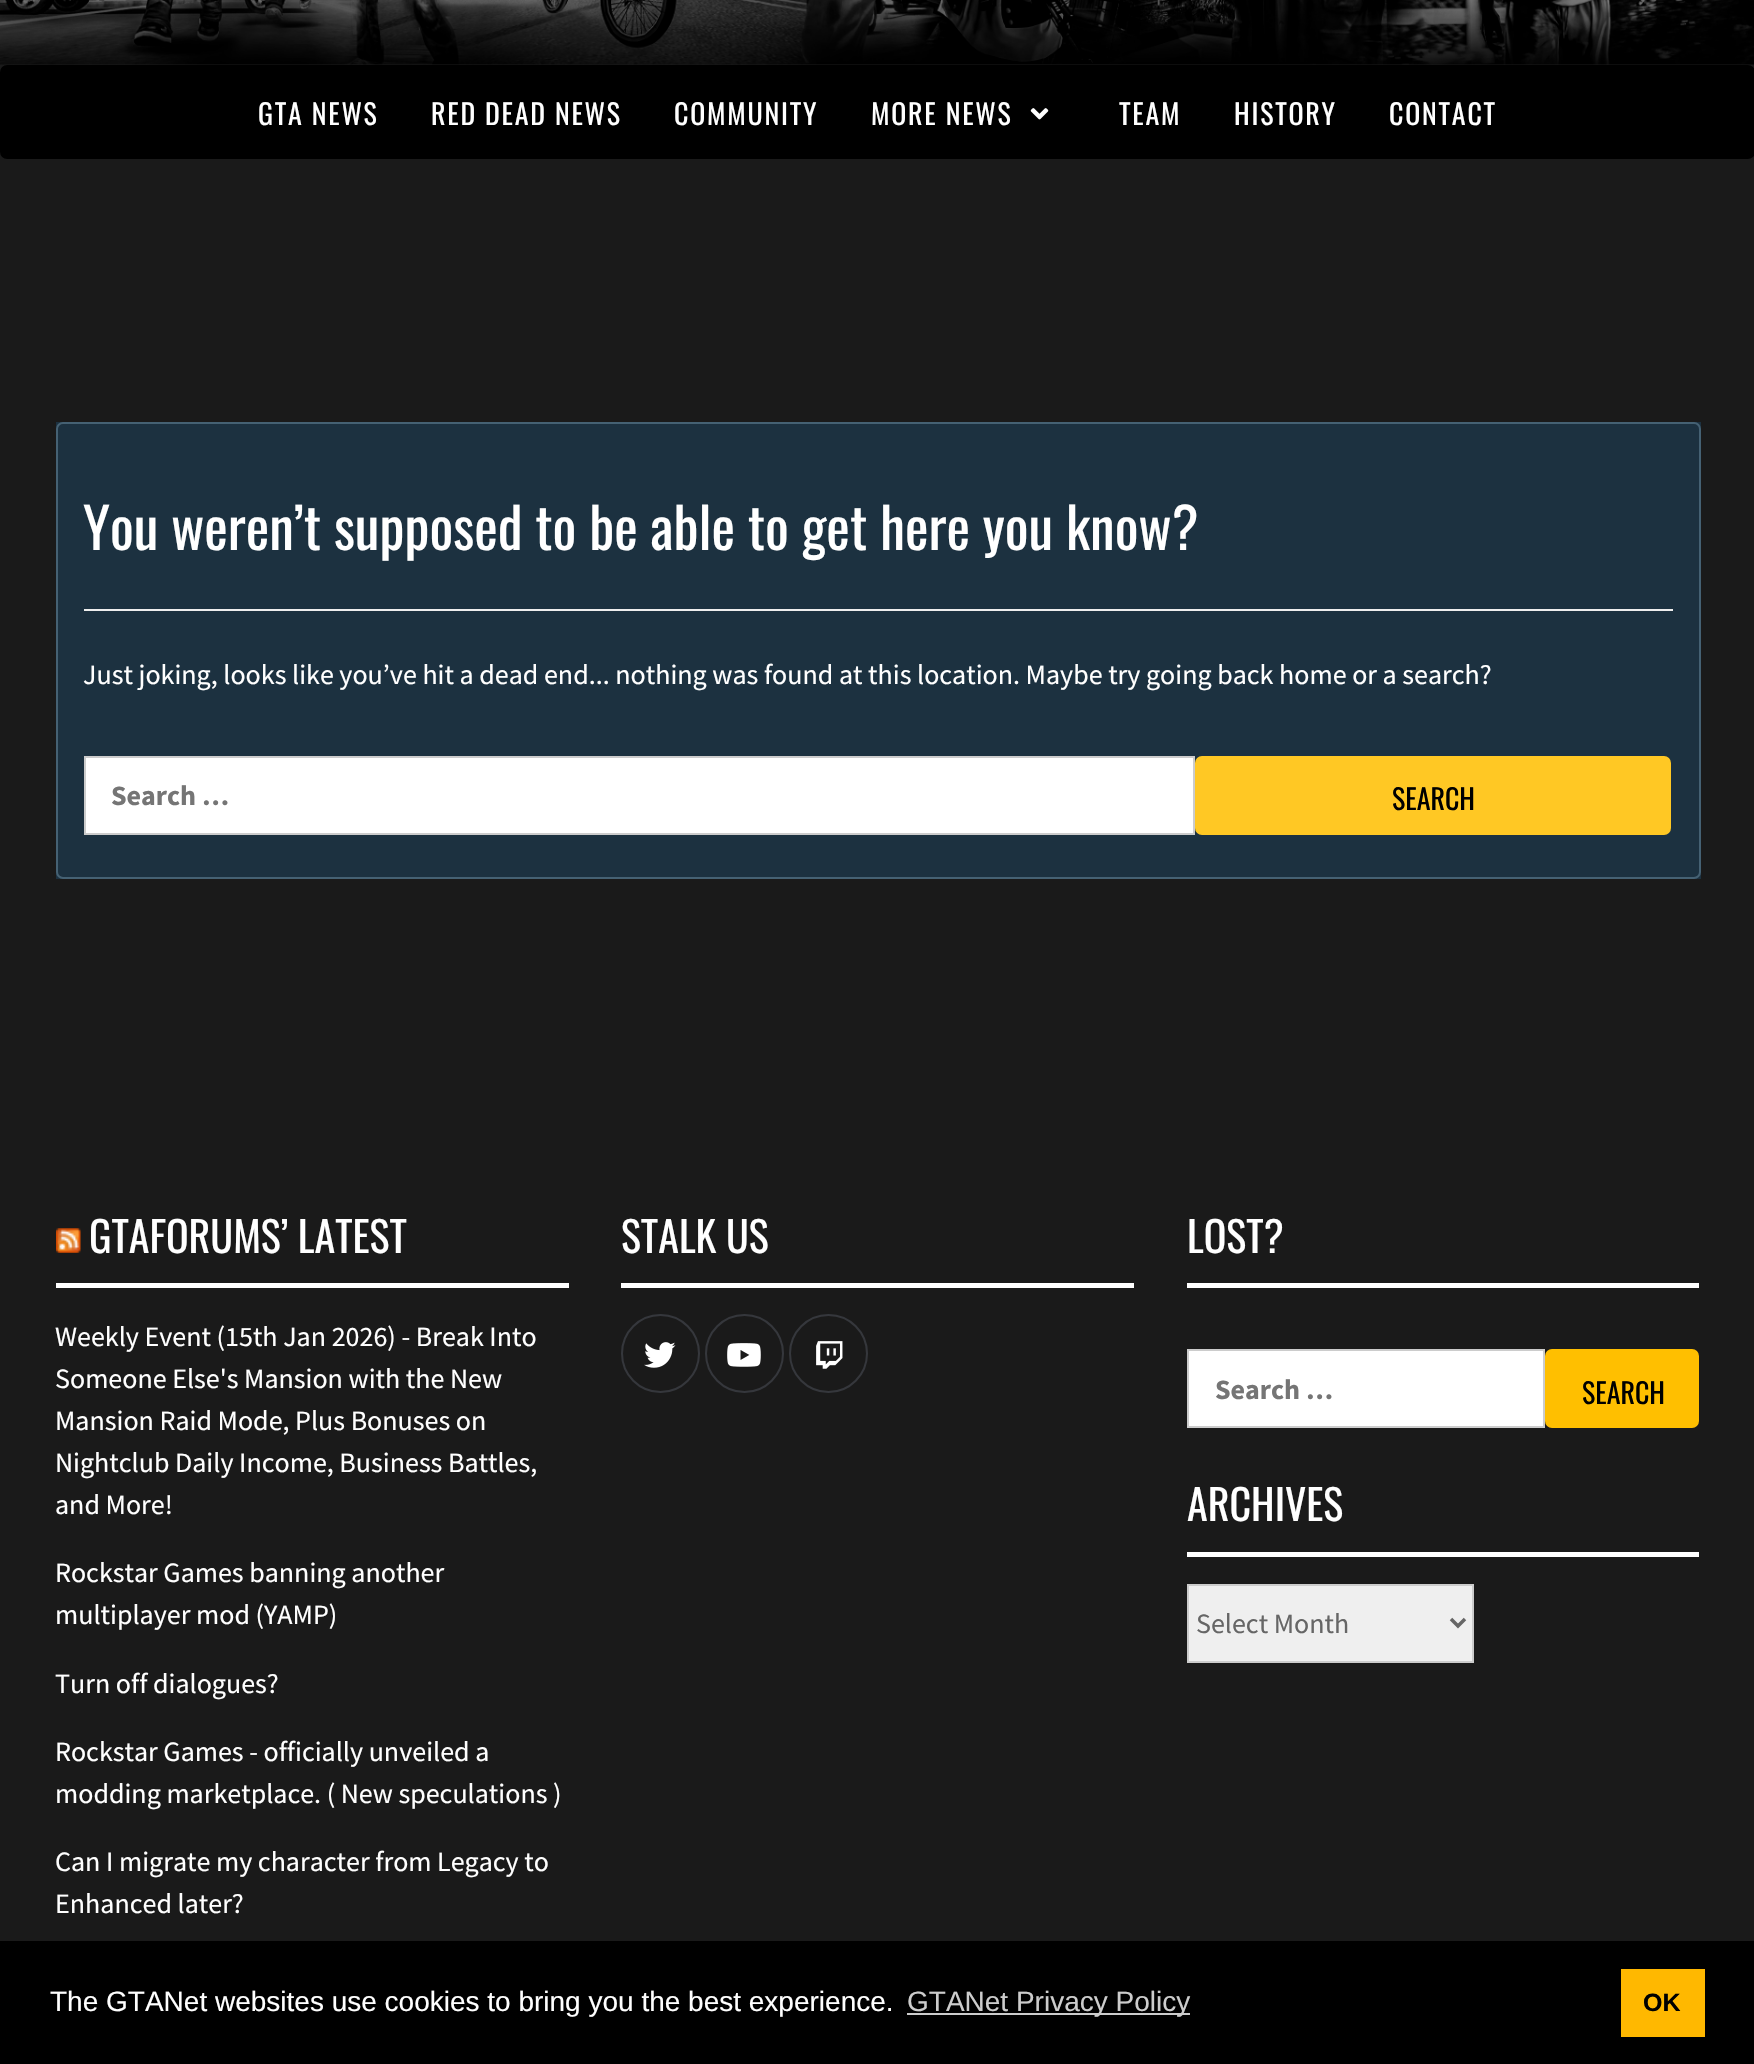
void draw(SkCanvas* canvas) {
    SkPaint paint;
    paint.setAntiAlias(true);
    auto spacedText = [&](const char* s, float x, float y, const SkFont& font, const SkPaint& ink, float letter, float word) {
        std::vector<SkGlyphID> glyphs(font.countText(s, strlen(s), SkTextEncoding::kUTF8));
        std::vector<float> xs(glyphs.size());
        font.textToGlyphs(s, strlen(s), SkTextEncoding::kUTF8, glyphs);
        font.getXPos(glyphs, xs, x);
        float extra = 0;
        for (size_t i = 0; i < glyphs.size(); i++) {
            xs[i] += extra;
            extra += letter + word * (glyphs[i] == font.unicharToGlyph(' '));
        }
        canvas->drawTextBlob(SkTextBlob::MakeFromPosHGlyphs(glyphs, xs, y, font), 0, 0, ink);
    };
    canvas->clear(0xFF1A1A1A);
    canvas->drawImageRect(SkImages::DeferredFromEncodedData(SkData::MakeFromFileName("img1.png")), SkRect::MakeXYWH(0, 0, 1754, 65), SkSamplingOptions());
    paint.setColor(0xFF000000);
    canvas->drawRoundRect(SkRect::MakeXYWH(0, 65, 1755, 94), 7, 7, paint);
    SkFont font1(fontMgr->matchFamilyStyle("Oswald", SkFontStyle::Normal()), 28);
    font1.setSubpixel(true);
    paint.setColor(0xFFFFFFFF);
    spacedText("GTA NEWS", 258, 125, font1, paint, 1.75f, 0);
    spacedText("RED DEAD NEWS", 431, 125, font1, paint, 1.75f, 0);
    spacedText("COMMUNITY", 674, 125, font1, paint, 1.75f, 0);
    spacedText("MORE NEWS", 871, 125, font1, paint, 1.75f, 0);
    canvas->drawImageRect(SkImages::DeferredFromEncodedData(SkData::MakeFromFileName("img2.png")), SkRect::MakeXYWH(1030, 108, 19, 12), SkSamplingOptions());
    spacedText("TEAM", 1119, 125, font1, paint, 1.75f, 0);
    spacedText("HISTORY", 1234, 125, font1, paint, 1.75f, 0);
    spacedText("CONTACT", 1389, 125, font1, paint, 1.75f, 0);
    paint.setColor(0xFF1C3140);
    canvas->drawRect(SkRect::MakeXYWH(56, 422, 1645, 457), paint);
    paint.setStyle(SkPaint::kStroke_Style);
    paint.setStrokeWidth(2);
    paint.setColor(0xFF456173);
    canvas->drawRoundRect(SkRect::MakeXYWH(57, 423, 1643, 455), 6, 6, paint);
    paint.setStyle(SkPaint::kFill_Style);
    paint.setColor(0xFFEEEEEE);
    canvas->drawRect(SkRect::MakeXYWH(84, 609, 1589, 2), paint);
    SkFont font2(fontMgr->matchFamilyStyle("Oswald", SkFontStyle::Normal()), 56);
    font2.setSubpixel(true);
    paint.setColor(0xFFFFFFFF);
    canvas->drawString("You weren’t supposed to be able to get here you know?", 83, 550, font2, paint);
    SkFont font3(fontMgr->matchFamilyStyle("Source Sans Pro", SkFontStyle::Normal()), 28);
    font3.setSubpixel(true);
    canvas->drawString("Just joking, looks like you’ve hit a dead end... nothing was found at this location. Maybe try going back home or a search?", 83, 684, font3, paint);
    canvas->drawRect(SkRect::MakeXYWH(85, 757, 1109, 77), paint);
    paint.setStyle(SkPaint::kStroke_Style);
    paint.setColor(0xFFCCCCCC);
    canvas->drawRect(SkRect::MakeXYWH(85, 757, 1109, 77), paint);
    SkFont font4(fontMgr->matchFamilyStyle("Source Sans Pro", SkFontStyle::Bold()), 28);
    font4.setSubpixel(true);
    paint.setStyle(SkPaint::kFill_Style);
    paint.setColor(0xFF757575);
    canvas->drawString("Search …", 111, 805, font4, paint);
    paint.setColor(0xFFFFC824);
    canvas->drawRoundRect(SkRect::MakeXYWH(1195, 756, 476, 79), 7, 7, paint);
    paint.setColor(0xFF000000);
    canvas->drawString("SEARCH", 1392, 810, font1, paint);
    paint.setColor(0xFFFFFFFF);
    canvas->drawRect(SkRect::MakeXYWH(56, 1283, 513, 5), paint);
    canvas->drawImageRect(SkImages::DeferredFromEncodedData(SkData::MakeFromFileName("img3.png")), SkRect::MakeXYWH(56, 1228, 25, 25), SkSamplingOptions());
    SkFont font5(fontMgr->matchFamilyStyle("Oswald", SkFontStyle::Normal()), 42);
    font5.setSubpixel(true);
    canvas->drawString("GTAFORUMS’ LATEST", 89, 1253, font5, paint);
    canvas->drawString("Weekly Event (15th Jan 2026) - Break Into", 55, 1346, font3, paint);
    canvas->drawString("Someone Else's Mansion with the New", 55, 1388, font3, paint);
    canvas->drawString("Mansion Raid Mode, Plus Bonuses on", 55, 1430, font3, paint);
    canvas->drawString("Nightclub Daily Income, Business Battles,", 55, 1472, font3, paint);
    canvas->drawString("and More!", 55, 1514, font3, paint);
    canvas->drawString("Rockstar Games banning another", 55, 1582, font3, paint);
    canvas->drawString("multiplayer mod (YAMP)", 55, 1624, font3, paint);
    canvas->drawString("Turn off dialogues?", 55, 1693, font3, paint);
    canvas->drawString("Rockstar Games - officially unveiled a", 55, 1761, font3, paint);
    canvas->drawString("modding marketplace. ( New speculations )", 55, 1803, font3, paint);
    canvas->drawString("Can I migrate my character from Legacy to", 55, 1871, font3, paint);
    canvas->drawString("Enhanced later?", 55, 1913, font3, paint);
    canvas->drawRect(SkRect::MakeXYWH(621, 1283, 513, 5), paint);
    canvas->drawString("STALK US", 621, 1253, font5, paint);
    paint.setStyle(SkPaint::kStroke_Style);
    paint.setColor(0xFF35373C);
    canvas->drawCircle(660.5f, 1353.5f, 38.5f, paint);
    canvas->drawImageRect(SkImages::DeferredFromEncodedData(SkData::MakeFromFileName("img4.png")), SkRect::MakeXYWH(644, 1342, 32, 26), SkSamplingOptions());
    canvas->drawCircle(744.5f, 1353.5f, 38.5f, paint);
    canvas->drawImageRect(SkImages::DeferredFromEncodedData(SkData::MakeFromFileName("img5.png")), SkRect::MakeXYWH(727, 1343, 34, 24), SkSamplingOptions());
    canvas->drawCircle(828.5f, 1353.5f, 38.5f, paint);
    canvas->drawImageRect(SkImages::DeferredFromEncodedData(SkData::MakeFromFileName("img6.png")), SkRect::MakeXYWH(816, 1341, 27, 28), SkSamplingOptions());
    paint.setStyle(SkPaint::kFill_Style);
    paint.setColor(0xFFFFFFFF);
    canvas->drawRect(SkRect::MakeXYWH(1187, 1283, 512, 5), paint);
    canvas->drawString("LOST?", 1187, 1253, font5, paint);
    canvas->drawRect(SkRect::MakeXYWH(1188, 1350, 356, 77), paint);
    paint.setStyle(SkPaint::kStroke_Style);
    paint.setColor(0xFFCCCCCC);
    canvas->drawRect(SkRect::MakeXYWH(1188, 1350, 356, 77), paint);
    paint.setStyle(SkPaint::kFill_Style);
    paint.setColor(0xFF757575);
    canvas->drawString("Search …", 1215, 1399, font4, paint);
    paint.setColor(0xFFFFBF00);
    canvas->drawRoundRect(SkRect::MakeXYWH(1545, 1349, 154, 79), 7, 7, paint);
    paint.setColor(0xFF000000);
    canvas->drawString("SEARCH", 1582, 1404, font1, paint);
    paint.setColor(0xFFFFFFFF);
    canvas->drawRect(SkRect::MakeXYWH(1187, 1552, 512, 5), paint);
    canvas->drawString("ARCHIVES", 1187, 1521, font5, paint);
    paint.setColor(0xFFEFEFEF);
    canvas->drawRect(SkRect::MakeXYWH(1188, 1585, 285, 77), paint);
    paint.setStyle(SkPaint::kStroke_Style);
    paint.setColor(0xFFCCCCCC);
    canvas->drawRect(SkRect::MakeXYWH(1188, 1585, 285, 77), paint);
    paint.setStrokeWidth(3.5f);
    paint.setColor(0xFF666666);
    canvas->drawPath(SkPathBuilder().moveTo(1451, 1619).lineTo(1458, 1626).lineTo(1465, 1619).detach(), paint);
    paint.setStyle(SkPaint::kFill_Style);
    canvas->drawString("Select Month", 1196, 1633, font3, paint);
    paint.setColor(0xFF000000);
    canvas->drawRect(SkRect::MakeXYWH(0, 1941, 1754, 123), paint);
    SkFont font6(fontMgr->matchFamilyStyle("Liberation Sans", SkFontStyle::Normal()), 28);
    font6.setSubpixel(true);
    paint.setColor(0xFFFFFFFF);
    canvas->drawString("The GTANet websites use cookies to bring you the best experience.", 50, 2011, font6, paint);
    paint.setColor(0xFFCCCCCC);
    canvas->drawRect(SkRect::MakeXYWH(907, 2013, 283, 2), paint);
    canvas->drawString("GTANet Privacy Policy", 907, 2011, font6, paint);
    paint.setColor(0xFFFFB800);
    canvas->drawRect(SkRect::MakeXYWH(1621, 1969, 84, 68), paint);
    SkFont font7(fontMgr->matchFamilyStyle("Liberation Sans", SkFontStyle::Bold()), 25);
    font7.setSubpixel(true);
    paint.setColor(0xFF000000);
    canvas->drawString("OK", 1643, 2011, font7, paint);
}
